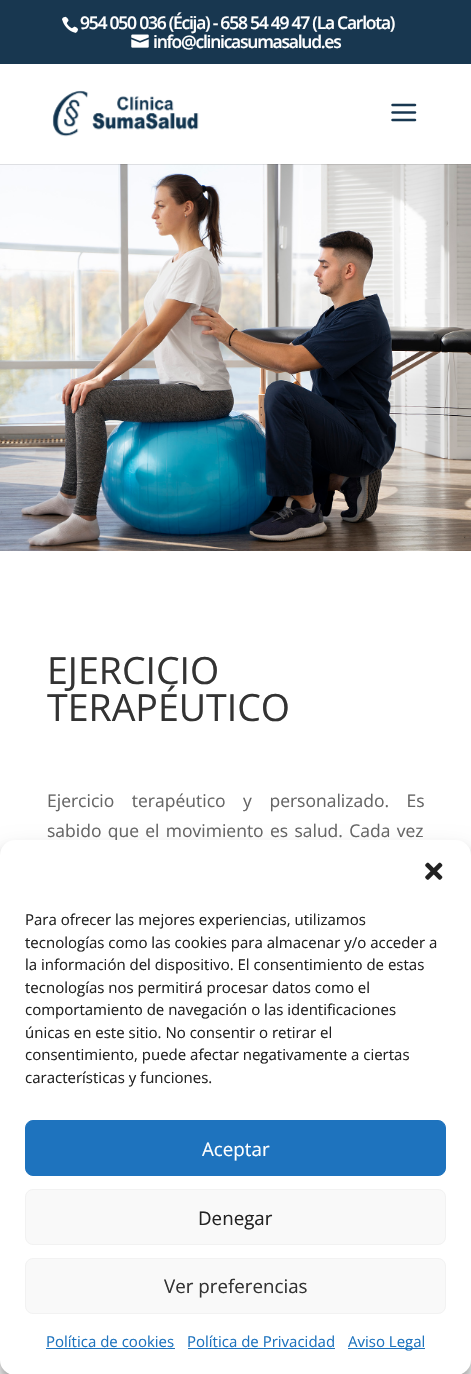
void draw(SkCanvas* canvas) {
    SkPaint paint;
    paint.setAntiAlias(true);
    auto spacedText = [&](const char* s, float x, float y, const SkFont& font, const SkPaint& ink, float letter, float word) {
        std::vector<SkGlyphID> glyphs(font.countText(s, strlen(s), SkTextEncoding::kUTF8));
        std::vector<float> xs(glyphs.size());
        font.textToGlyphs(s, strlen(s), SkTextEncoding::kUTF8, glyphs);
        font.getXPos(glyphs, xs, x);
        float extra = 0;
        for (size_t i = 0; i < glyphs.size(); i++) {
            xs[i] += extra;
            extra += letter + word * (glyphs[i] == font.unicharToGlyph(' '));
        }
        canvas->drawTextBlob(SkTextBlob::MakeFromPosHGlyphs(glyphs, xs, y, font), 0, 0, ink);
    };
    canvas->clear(0xFFFFFFFF);
    paint.setColor(0xFF183750);
    canvas->drawRect(SkRect::MakeXYWH(0, 0, 471, 64), paint);
    canvas->drawImageRect(SkImages::DeferredFromEncodedData(SkData::MakeFromFileName("img1.png")), SkRect::MakeXYWH(62, 16, 16, 17), SkSamplingOptions());
    SkFont font1(fontMgr->matchFamilyStyle("Open Sans", SkFontStyle(600, SkFontStyle::kNormal_Width, SkFontStyle::kUpright_Slant)), 17.5f);
    font1.setSubpixel(true);
    paint.setColor(0xFFFFFFFF);
    spacedText("954 050 036 (Écija) - 658 54 49 47 (La Carlota)", 80, 29, font1, paint, -1.25f, 0);
    canvas->drawImageRect(SkImages::DeferredFromEncodedData(SkData::MakeFromFileName("img2.png")), SkRect::MakeXYWH(131, 34, 18, 14), SkSamplingOptions());
    spacedText("info@clinicasumasalud.es", 153, 48, font1, paint, -1.25f, 0);
    canvas->drawImageRect(SkImages::DeferredFromEncodedData(SkData::MakeFromFileName("img5.png")), SkRect::MakeXYWH(0, 164, 471, 387), SkSamplingOptions());
    paint.setColor(0x1A000000);
    canvas->drawRect(SkRect::MakeXYWH(0, 164, 471, 1), paint);
    canvas->drawImageRect(SkImages::DeferredFromEncodedData(SkData::MakeFromFileName("img3.png")), SkRect::MakeXYWH(52, 90, 147, 47), SkSamplingOptions());
    canvas->drawImageRect(SkImages::DeferredFromEncodedData(SkData::MakeFromFileName("img4.png")), SkRect::MakeXYWH(391, 103, 26, 19), SkSamplingOptions());
    SkFont font2(fontMgr->matchFamilyStyle("Open Sans", SkFontStyle::Normal()), 37.5f);
    font2.setSubpixel(true);
    paint.setColor(0xFF333333);
    canvas->drawString("EJERCICIO", 47, 684, font2, paint);
    canvas->drawString("TERAPÉUTICO", 47, 721, font2, paint);
    SkFont font3(fontMgr->matchFamilyStyle("Open Sans", SkFontStyle::Normal()), 17.5f);
    font3.setSubpixel(true);
    paint.setColor(0xFF666666);
    spacedText("Ejercicio terapéutico y personalizado. Es", 47, 807, font3, paint, 0, 13);
    spacedText("sabido que el movimiento es salud. Cada vez", 47, 837, font3, paint, 0, 1.75f);
    paint.setColor(0x3B000000);
    paint.setMaskFilter(SkMaskFilter::MakeBlur(kNormal_SkBlurStyle, 4));
    canvas->drawRoundRect(SkRect::MakeXYWH(0, 848, 471, 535), 15, 15, paint);
    paint.setMaskFilter(nullptr);
    paint.setColor(0x30000000);
    paint.setMaskFilter(SkMaskFilter::MakeBlur(kNormal_SkBlurStyle, 12.5f));
    canvas->drawRoundRect(SkRect::MakeXYWH(0, 853, 471, 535), 15, 15, paint);
    paint.setMaskFilter(nullptr);
    paint.setColor(0xFFFFFFFF);
    canvas->drawRoundRect(SkRect::MakeXYWH(0, 840, 471, 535), 15, 15, paint);
    canvas->drawImageRect(SkImages::DeferredFromEncodedData(SkData::MakeFromFileName("img6.png")), SkRect::MakeXYWH(425, 862, 18, 18), SkSamplingOptions());
    SkFont font4(fontMgr->matchFamilyStyle("Open Sans", SkFontStyle::Normal()), 15);
    font4.setSubpixel(true);
    paint.setColor(0xFF222222);
    canvas->drawString("Para ofrecer las mejores experiencias, utilizamos", 25, 925, font4, paint);
    canvas->drawString("tecnologías como las cookies para almacenar y/o acceder a", 25, 948, font4, paint);
    canvas->drawString("la información del dispositivo. El consentimiento de estas", 25, 970, font4, paint);
    canvas->drawString("tecnologías nos permitirá procesar datos como el", 25, 993, font4, paint);
    canvas->drawString("comportamiento de navegación o las identificaciones", 25, 1015, font4, paint);
    canvas->drawString("únicas en este sitio. No consentir o retirar el", 25, 1038, font4, paint);
    canvas->drawString("consentimiento, puede afectar negativamente a ciertas", 25, 1060, font4, paint);
    canvas->drawString("características y funciones.", 25, 1083, font4, paint);
    paint.setColor(0xFF1E73BE);
    canvas->drawRoundRect(SkRect::MakeXYWH(25.5f, 1120.5f, 420, 55), 7.5f, 7.5f, paint);
    paint.setStyle(SkPaint::kStroke_Style);
    paint.setStrokeWidth(1);
    canvas->drawRoundRect(SkRect::MakeXYWH(25.5f, 1120.5f, 420, 55), 7.5f, 7.5f, paint);
    SkFont font5(fontMgr->matchFamilyStyle("Open Sans", SkFontStyle::Normal()), 18.75f);
    font5.setSubpixel(true);
    paint.setStyle(SkPaint::kFill_Style);
    paint.setColor(0xFFFFFFFF);
    canvas->drawString("Aceptar", 202, 1156, font5, paint);
    paint.setColor(0xFFF9F9F9);
    canvas->drawRoundRect(SkRect::MakeXYWH(25.5f, 1189.5f, 420, 55), 7.5f, 7.5f, paint);
    paint.setStyle(SkPaint::kStroke_Style);
    paint.setColor(0xFFF2F2F2);
    canvas->drawRoundRect(SkRect::MakeXYWH(25.5f, 1189.5f, 420, 55), 7.5f, 7.5f, paint);
    paint.setStyle(SkPaint::kFill_Style);
    paint.setColor(0xFF222222);
    canvas->drawString("Denegar", 198, 1225, font5, paint);
    paint.setColor(0xFFF9F9F9);
    canvas->drawRoundRect(SkRect::MakeXYWH(25.5f, 1258.5f, 420, 55), 7.5f, 7.5f, paint);
    paint.setStyle(SkPaint::kStroke_Style);
    paint.setColor(0xFFF2F2F2);
    canvas->drawRoundRect(SkRect::MakeXYWH(25.5f, 1258.5f, 420, 55), 7.5f, 7.5f, paint);
    paint.setStyle(SkPaint::kFill_Style);
    paint.setColor(0xFF333333);
    canvas->drawString("Ver preferencias", 164, 1293, font5, paint);
    paint.setColor(0xFF1E73BE);
    canvas->drawString("Política de cookies", 46, 1347, font4, paint);
    canvas->drawRect(SkRect::MakeXYWH(46, 1348, 129, 1), paint);
    canvas->drawString("Política de Privacidad", 187, 1347, font4, paint);
    canvas->drawRect(SkRect::MakeXYWH(188, 1348, 147, 1), paint);
    canvas->drawRect(SkRect::MakeXYWH(348, 1348, 77, 1), paint);
    canvas->drawString("Aviso Legal", 348, 1347, font4, paint);
}
